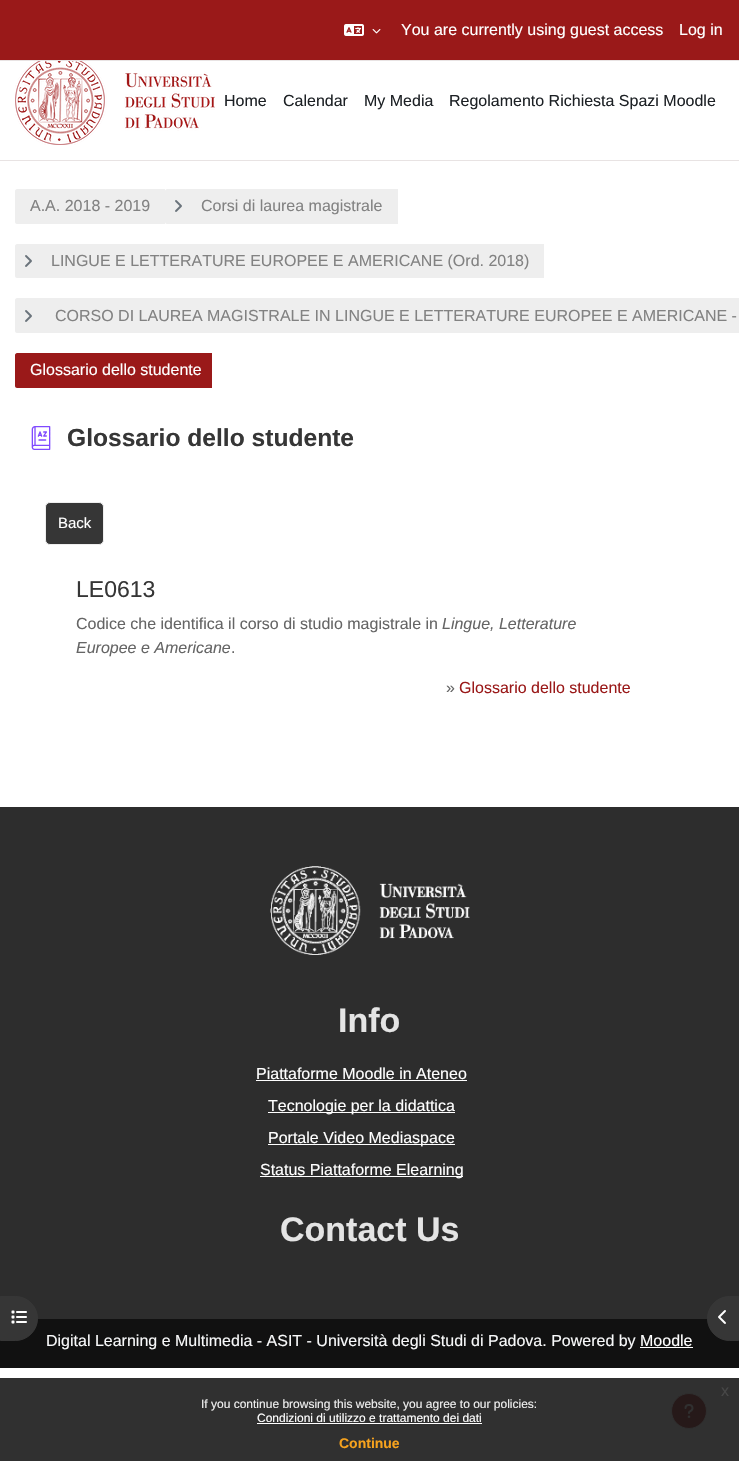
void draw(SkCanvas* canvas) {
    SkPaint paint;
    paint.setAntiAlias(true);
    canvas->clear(0xFFFFFFFF);
    paint.setColor(0xFF303030);
    canvas->drawRect(SkRect::MakeXYWH(0, 1378, 739, 83), paint);
    paint.setColor(0xFF9A1919);
    canvas->drawRect(SkRect::MakeXYWH(0, 0, 739, 60), paint);
    paint.setColor(0xFFE8E3E3);
    canvas->drawRect(SkRect::MakeXYWH(0, 60, 739, 1), paint);
    canvas->drawImageRect(SkImages::DeferredFromEncodedData(SkData::MakeFromFileName("img1.png")), SkRect::MakeXYWH(344, 24, 20, 12), SkSamplingOptions());
    canvas->drawImageRect(SkImages::DeferredFromEncodedData(SkData::MakeFromFileName("img2.png")), SkRect::MakeXYWH(372, 29, 9, 5), SkSamplingOptions());
    SkFont font1(fontMgr->matchFamilyStyle("Liberation Sans", SkFontStyle::Normal()), 16);
    font1.setSubpixel(true);
    paint.setColor(0xFFFFFFFF);
    canvas->drawString("You are currently using guest access", 401, 35, font1, paint);
    canvas->drawString("Log in", 679, 35, font1, paint);
    paint.setColor(0xFFE8E3E3);
    canvas->drawRect(SkRect::MakeXYWH(0, 160, 739, 1), paint);
    canvas->drawImageRect(SkImages::DeferredFromEncodedData(SkData::MakeFromFileName("img3.png")), SkRect::MakeXYWH(15, 61, 200, 84), SkSamplingOptions());
    paint.setColor(0xFF1D2125);
    canvas->drawString("Home", 224, 106, font1, paint);
    canvas->drawString("Calendar", 283, 106, font1, paint);
    canvas->drawString("My Media", 364, 106, font1, paint);
    canvas->drawString("Regolamento Richiesta Spazi Moodle", 449, 106, font1, paint);
    paint.setColor(0xFFEEEEEE);
    canvas->drawPath(SkPathBuilder().moveTo(17, 189).lineTo(165, 189).lineTo(165, 224).lineTo(17, 224).cubicTo(16, 224, 15, 223, 15, 222).lineTo(15, 191).cubicTo(15, 190, 16, 189, 17, 189).close().detach(), paint);
    paint.setColor(0xFF828282);
    canvas->drawString("A.A. 2018 - 2019", 30, 211, font1, paint);
    paint.setColor(0xFFEEEEEE);
    canvas->drawPath(SkPathBuilder().moveTo(167, 189).lineTo(398, 189).lineTo(398, 224).lineTo(167, 224).cubicTo(166, 224, 165, 223, 165, 222).lineTo(165, 191).cubicTo(165, 190, 166, 189, 167, 189).close().detach(), paint);
    canvas->drawImageRect(SkImages::DeferredFromEncodedData(SkData::MakeFromFileName("img4.png")), SkRect::MakeXYWH(175, 200, 7, 12), SkSamplingOptions());
    paint.setColor(0xFF828282);
    canvas->drawString("Corsi di laurea magistrale", 201, 211, font1, paint);
    paint.setColor(0xFFEEEEEE);
    canvas->drawPath(SkPathBuilder().moveTo(17, 244).lineTo(544, 244).lineTo(544, 278).lineTo(17, 278).cubicTo(16, 278, 15, 277, 15, 276).lineTo(15, 246).cubicTo(15, 245, 16, 244, 17, 244).close().detach(), paint);
    canvas->drawImageRect(SkImages::DeferredFromEncodedData(SkData::MakeFromFileName("img4.png")), SkRect::MakeXYWH(25, 255, 7, 12), SkSamplingOptions());
    paint.setColor(0xFF828282);
    canvas->drawString("LINGUE E LETTERATURE EUROPEE E AMERICANE (Ord. 2018)", 51, 266, font1, paint);
    paint.setColor(0xFFEEEEEE);
    canvas->drawPath(SkPathBuilder().moveTo(17, 298).lineTo(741, 298).lineTo(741, 333).lineTo(17, 333).cubicTo(16, 333, 15, 332, 15, 331).lineTo(15, 300).cubicTo(15, 299, 16, 298, 17, 298).close().detach(), paint);
    canvas->drawImageRect(SkImages::DeferredFromEncodedData(SkData::MakeFromFileName("img4.png")), SkRect::MakeXYWH(25, 310, 7, 12), SkSamplingOptions());
    paint.setColor(0xFF828282);
    canvas->drawString("CORSO DI LAUREA MAGISTRALE IN LINGUE E LETTERATURE EUROPEE E AMERICANE -", 55, 321, font1, paint);
    paint.setColor(0xFF9A1919);
    canvas->drawPath(SkPathBuilder().moveTo(17, 353).lineTo(212, 353).lineTo(212, 388).lineTo(17, 388).cubicTo(16, 388, 15, 387, 15, 386).lineTo(15, 355).cubicTo(15, 354, 16, 353, 17, 353).close().detach(), paint);
    paint.setColor(0xFFFFFFFF);
    canvas->drawString("Glossario dello studente", 30, 375, font1, paint);
    canvas->drawImageRect(SkImages::DeferredFromEncodedData(SkData::MakeFromFileName("img5.png")), SkRect::MakeXYWH(31, 426, 20, 24), SkSamplingOptions());
    SkFont font2(fontMgr->matchFamilyStyle("Liberation Sans", SkFontStyle::Bold()), 24.6f);
    font2.setSubpixel(true);
    paint.setColor(0xFF363636);
    canvas->drawString("Glossario dello studente", 67, 446, font2, paint);
    canvas->drawRoundRect(SkRect::MakeXYWH(45.5f, 502.5f, 58, 42), 4.5f, 4.5f, paint);
    paint.setStyle(SkPaint::kStroke_Style);
    paint.setStrokeWidth(1);
    paint.setColor(0xFFEEEEEE);
    canvas->drawRoundRect(SkRect::MakeXYWH(45.5f, 502.5f, 58, 42), 4.5f, 4.5f, paint);
    SkFont font3(fontMgr->matchFamilyStyle("Liberation Sans", SkFontStyle::Normal()), 15);
    font3.setSubpixel(true);
    paint.setStyle(SkPaint::kFill_Style);
    paint.setColor(0xFFFFFFFF);
    canvas->drawString("Back", 58, 528, font3, paint);
    SkFont font4(fontMgr->matchFamilyStyle("Liberation Sans", SkFontStyle::Normal()), 23);
    font4.setSubpixel(true);
    paint.setColor(0xFF363636);
    canvas->drawString("LE0613", 76, 597, font4, paint);
    paint.setColor(0xFF656565);
    canvas->drawString("Codice che identifica il corso di studio magistrale in", 76, 629, font1, paint);
    SkFont font5(fontMgr->matchFamilyStyle("Liberation Sans", SkFontStyle::Italic()), 16);
    font5.setSubpixel(true);
    canvas->drawString("Lingue, Letterature", 442, 629, font5, paint);
    canvas->drawString("Europee e Americane", 76, 653, font5, paint);
    canvas->drawString(".", 231, 653, font1, paint);
    canvas->drawString("»", 446, 693, font1, paint);
    paint.setColor(0xFF9A1919);
    canvas->drawString("Glossario dello studente", 459, 693, font1, paint);
    paint.setColor(0xFF2D2D2D);
    canvas->drawRect(SkRect::MakeXYWH(0, 807, 739, 512), paint);
    paint.setColor(0xFF111111);
    canvas->drawRect(SkRect::MakeXYWH(0, 1319, 739, 49), paint);
    paint.setColor(0xFF363636);
    canvas->drawPath(SkPathBuilder().moveTo(0.5f, 1296.5f).lineTo(15.5f, 1296.5f).cubicTo(27.5f, 1296.5f, 37.5f, 1306.5f, 37.5f, 1318.5f).cubicTo(37.5f, 1330.5f, 27.5f, 1340.5f, 15.5f, 1340.5f).lineTo(0.5f, 1340.5f).close().detach(), paint);
    paint.setStyle(SkPaint::kStroke_Style);
    canvas->drawPath(SkPathBuilder().moveTo(0.5f, 1296.5f).lineTo(15.5f, 1296.5f).cubicTo(27.5f, 1296.5f, 37.5f, 1306.5f, 37.5f, 1318.5f).cubicTo(37.5f, 1330.5f, 27.5f, 1340.5f, 15.5f, 1340.5f).lineTo(0.5f, 1340.5f).close().detach(), paint);
    canvas->drawImageRect(SkImages::DeferredFromEncodedData(SkData::MakeFromFileName("img6.png")), SkRect::MakeXYWH(11, 1310, 16, 14), SkSamplingOptions());
    paint.setStyle(SkPaint::kFill_Style);
    canvas->drawPath(SkPathBuilder().moveTo(729.5f, 1296.5f).lineTo(738.5f, 1296.5f).lineTo(738.5f, 1340.5f).lineTo(729.5f, 1340.5f).cubicTo(717.5f, 1340.5f, 707.5f, 1330.5f, 707.5f, 1318.5f).cubicTo(707.5f, 1306.5f, 717.5f, 1296.5f, 729.5f, 1296.5f).close().detach(), paint);
    paint.setStyle(SkPaint::kStroke_Style);
    canvas->drawPath(SkPathBuilder().moveTo(729.5f, 1296.5f).lineTo(738.5f, 1296.5f).lineTo(738.5f, 1340.5f).lineTo(729.5f, 1340.5f).cubicTo(717.5f, 1340.5f, 707.5f, 1330.5f, 707.5f, 1318.5f).cubicTo(707.5f, 1306.5f, 717.5f, 1296.5f, 729.5f, 1296.5f).close().detach(), paint);
    canvas->drawImageRect(SkImages::DeferredFromEncodedData(SkData::MakeFromFileName("img7.png")), SkRect::MakeXYWH(718, 1310, 8, 14), SkSamplingOptions());
    canvas->drawImageRect(SkImages::DeferredFromEncodedData(SkData::MakeFromFileName("img8.png")), SkRect::MakeXYWH(270, 866, 200, 89), SkSamplingOptions());
    SkFont font6(fontMgr->matchFamilyStyle("Liberation Sans", SkFontStyle::Bold()), 34);
    font6.setSubpixel(true);
    paint.setStyle(SkPaint::kFill_Style);
    paint.setColor(0xFFE4E4E4);
    canvas->drawString("Info", 338, 1032, font6, paint);
    paint.setColor(0xFFFFFFFF);
    canvas->drawString("Piattaforme Moodle in Ateneo", 256, 1079, font1, paint);
    canvas->drawRect(SkRect::MakeXYWH(256, 1080, 211, 1), paint);
    canvas->drawRect(SkRect::MakeXYWH(268, 1112, 187, 1), paint);
    canvas->drawString("Tecnologie per la didattica", 268, 1111, font1, paint);
    canvas->drawRect(SkRect::MakeXYWH(268, 1144, 187, 1), paint);
    canvas->drawString("Portale Video Mediaspace", 268, 1143, font1, paint);
    canvas->drawRect(SkRect::MakeXYWH(260, 1176, 203, 1), paint);
    canvas->drawString("Status Piattaforme Elearning", 260, 1175, font1, paint);
    paint.setColor(0xFFE4E4E4);
    canvas->drawString("Contact Us", 280, 1241, font6, paint);
    paint.setColor(0xFFF8F9FA);
    canvas->drawString("Digital Learning e Multimedia - ASIT - Università degli Studi di Padova. Powered by", 46, 1346, font1, paint);
    paint.setColor(0xFFFFFFFF);
    canvas->drawString("Moodle", 640, 1346, font1, paint);
    canvas->drawRect(SkRect::MakeXYWH(640, 1347, 53, 1), paint);
    paint.setColor(0xFF261919);
    canvas->drawCircle(689, 1411, 17.5f, paint);
    paint.setStyle(SkPaint::kStroke_Style);
    paint.setColor(0xFF2E2E2E);
    canvas->drawCircle(689, 1411, 17.5f, paint);
    canvas->drawImageRect(SkImages::DeferredFromEncodedData(SkData::MakeFromFileName("img9.png")), SkRect::MakeXYWH(684, 1404, 10, 14), SkSamplingOptions());
    paint.setStyle(SkPaint::kFill_Style);
    paint.setColor(0xFF474747);
    canvas->drawString("x", 721, 1396, font1, paint);
    SkFont font7(fontMgr->matchFamilyStyle("Liberation Sans", SkFontStyle::Normal()), 12);
    font7.setSubpixel(true);
    paint.setColor(0xFFEFEFEF);
    canvas->drawString("If you continue browsing this website, you agree to our policies:", 201, 1408, font7, paint);
    paint.setColor(0xFFFFFFFF);
    canvas->drawString("Condizioni di utilizzo e trattamento dei dati", 257, 1422, font7, paint);
    canvas->drawRect(SkRect::MakeXYWH(257, 1423, 225, 1), paint);
    SkFont font8(fontMgr->matchFamilyStyle("Liberation Sans", SkFontStyle::Bold()), 14);
    font8.setSubpixel(true);
    paint.setColor(0xFFF6A21D);
    canvas->drawString("Continue", 339, 1448, font8, paint);
}
